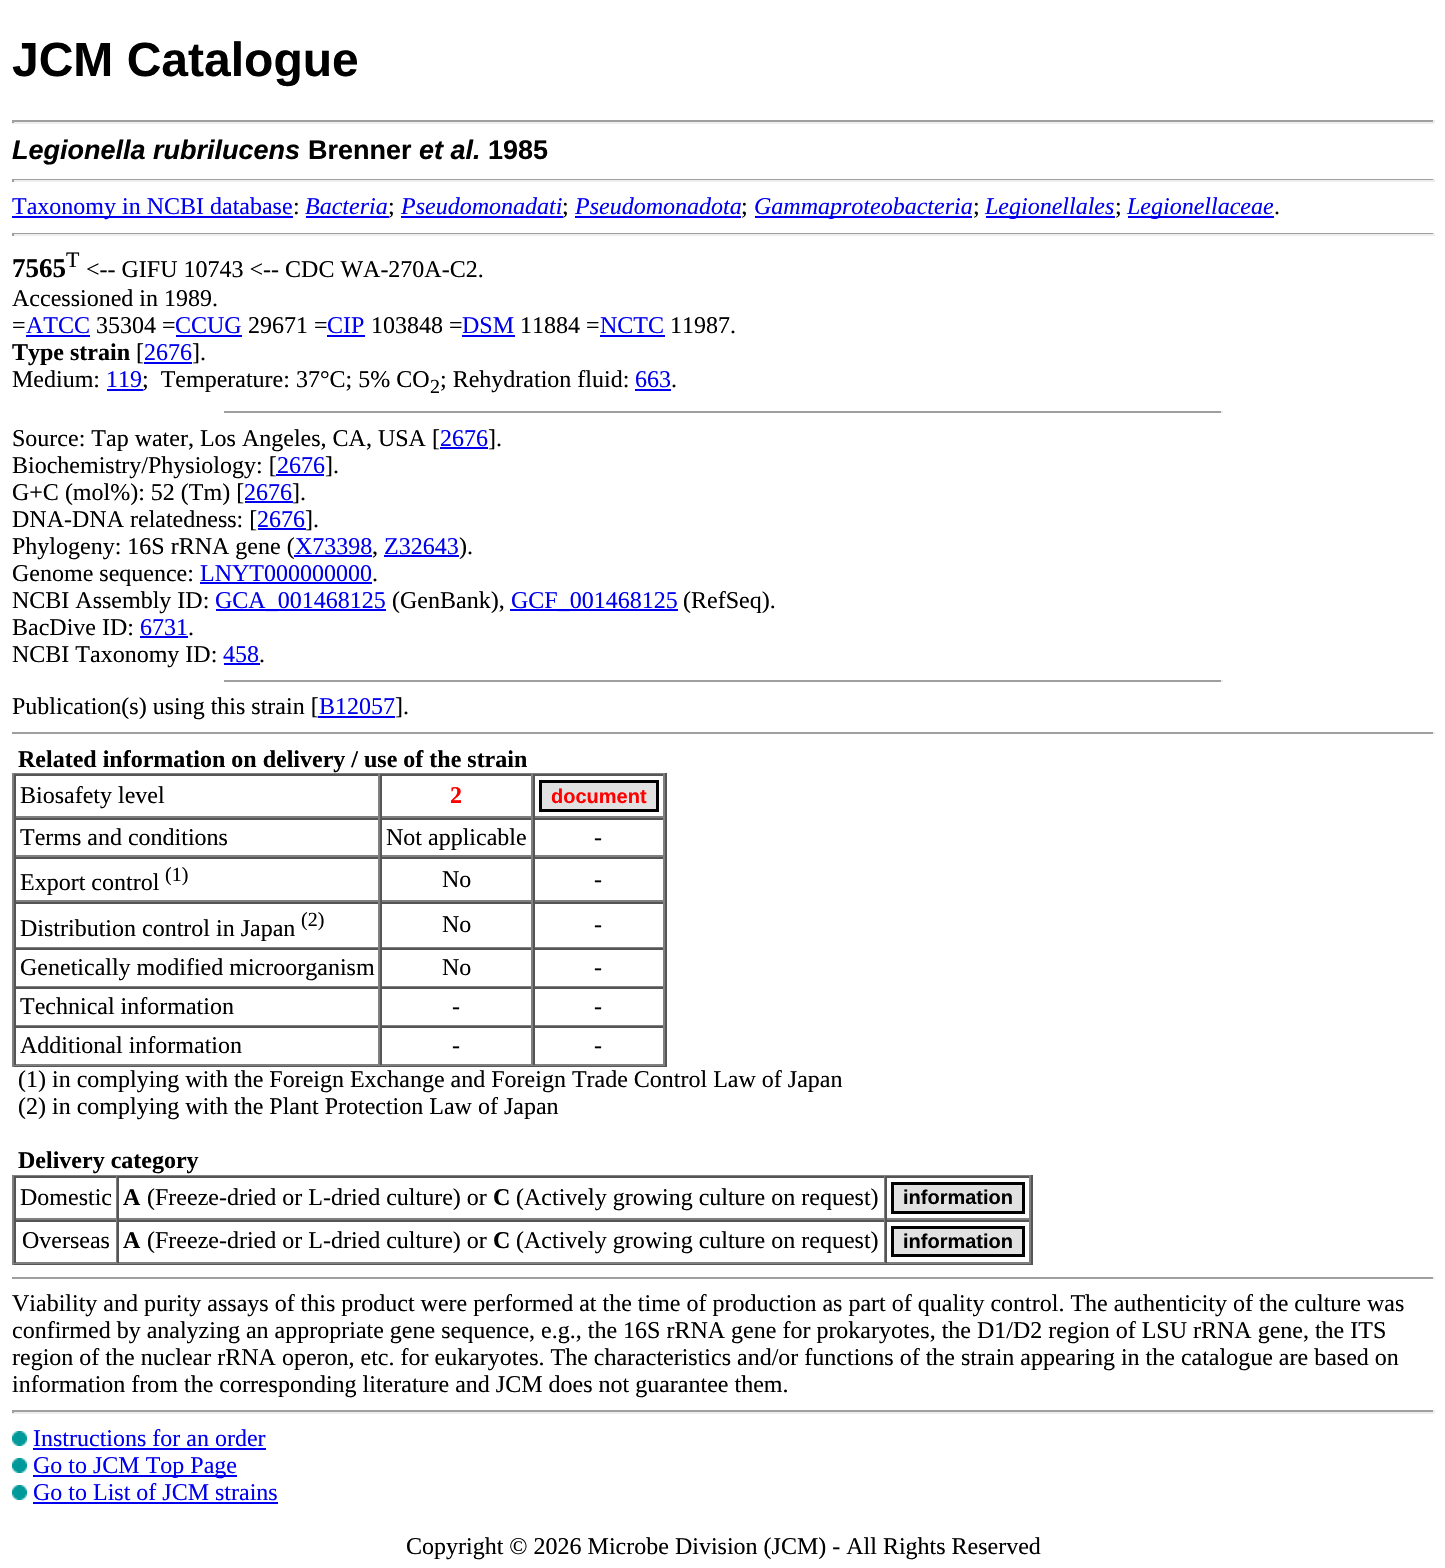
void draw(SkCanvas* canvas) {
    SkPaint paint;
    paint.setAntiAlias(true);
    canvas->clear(0xFFFFFFFF);
    SkFont font1(fontMgr->matchFamilyStyle("Liberation Sans", SkFontStyle::Bold()), 48);
    font1.setSubpixel(true);
    paint.setColor(0xFF000000);
    canvas->drawString("JCM Catalogue", 12, 76, font1, paint);
    paint.setColor(0xFF9F9F9F);
    canvas->drawRect(SkRect::MakeXYWH(12, 120, 1422, 2), paint);
    paint.setColor(0xFFEEEEEE);
    canvas->drawRect(SkRect::MakeXYWH(1433, 120, 2, 3), paint);
    canvas->drawRect(SkRect::MakeXYWH(12, 122, 1422, 2), paint);
    paint.setColor(0xFF9F9F9F);
    canvas->drawRect(SkRect::MakeXYWH(12, 120, 2, 3), paint);
    SkFont font2(fontMgr->matchFamilyStyle("Liberation Sans", SkFontStyle::BoldItalic()), 27);
    font2.setSubpixel(true);
    paint.setColor(0xFF000000);
    canvas->drawString("Legionella rubrilucens", 12, 159, font2, paint);
    SkFont font3(fontMgr->matchFamilyStyle("Liberation Sans", SkFontStyle::Bold()), 27);
    font3.setSubpixel(true);
    canvas->drawString("Brenner", 308, 159, font3, paint);
    canvas->drawString("et al.", 419, 159, font2, paint);
    canvas->drawString("1985", 488, 159, font3, paint);
    paint.setColor(0xFF9F9F9F);
    canvas->drawRect(SkRect::MakeXYWH(12, 179, 1422, 1), paint);
    paint.setColor(0xFFEEEEEE);
    canvas->drawRect(SkRect::MakeXYWH(1433, 179, 2, 3), paint);
    canvas->drawRect(SkRect::MakeXYWH(12, 180, 1422, 2), paint);
    paint.setColor(0xFF9F9F9F);
    canvas->drawRect(SkRect::MakeXYWH(12, 179, 2, 3), paint);
    paint.setColor(0xFF0000EE);
    canvas->drawRect(SkRect::MakeXYWH(12, 216, 281, 2), paint);
    SkFont font4(fontMgr->matchFamilyStyle("Liberation Serif", SkFontStyle::Normal()), 24);
    font4.setSubpixel(true);
    canvas->drawString("Taxonomy in NCBI database", 12, 214, font4, paint);
    paint.setColor(0xFF000000);
    canvas->drawString(":", 293, 214, font4, paint);
    SkFont font5(fontMgr->matchFamilyStyle("Liberation Serif", SkFontStyle::Italic()), 24);
    font5.setSubpixel(true);
    paint.setColor(0xFF0000EE);
    canvas->drawString("Bacteria", 305, 214, font5, paint);
    canvas->drawRect(SkRect::MakeXYWH(306, 216, 83, 2), paint);
    paint.setColor(0xFF000000);
    canvas->drawString(";", 388, 214, font4, paint);
    paint.setColor(0xFF0000EE);
    canvas->drawString("Pseudomonadati", 401, 214, font5, paint);
    canvas->drawRect(SkRect::MakeXYWH(401, 216, 162, 2), paint);
    paint.setColor(0xFF000000);
    canvas->drawString(";", 562, 214, font4, paint);
    paint.setColor(0xFF0000EE);
    canvas->drawString("Pseudomonadota", 575, 214, font5, paint);
    canvas->drawRect(SkRect::MakeXYWH(575, 216, 166, 2), paint);
    paint.setColor(0xFF000000);
    canvas->drawString(";", 741, 214, font4, paint);
    paint.setColor(0xFF0000EE);
    canvas->drawRect(SkRect::MakeXYWH(755, 216, 217, 2), paint);
    canvas->drawString("Gammaproteobacteria", 754, 214, font5, paint);
    paint.setColor(0xFF000000);
    canvas->drawString(";", 973, 214, font4, paint);
    paint.setColor(0xFF0000EE);
    canvas->drawRect(SkRect::MakeXYWH(986, 216, 129, 2), paint);
    canvas->drawString("Legionellales", 985, 214, font5, paint);
    paint.setColor(0xFF000000);
    canvas->drawString(";", 1115, 214, font4, paint);
    paint.setColor(0xFF0000EE);
    canvas->drawRect(SkRect::MakeXYWH(1128, 216, 146, 2), paint);
    canvas->drawString("Legionellaceae", 1127, 214, font5, paint);
    paint.setColor(0xFF000000);
    canvas->drawString(".", 1274, 214, font4, paint);
    paint.setColor(0xFF9F9F9F);
    canvas->drawRect(SkRect::MakeXYWH(12, 233, 1422, 1), paint);
    paint.setColor(0xFFEEEEEE);
    canvas->drawRect(SkRect::MakeXYWH(1433, 233, 2, 3), paint);
    canvas->drawRect(SkRect::MakeXYWH(12, 234, 1422, 2), paint);
    paint.setColor(0xFF9F9F9F);
    canvas->drawRect(SkRect::MakeXYWH(12, 233, 2, 3), paint);
    SkFont font6(fontMgr->matchFamilyStyle("Liberation Serif", SkFontStyle::Bold()), 27);
    font6.setSubpixel(true);
    paint.setColor(0xFF000000);
    canvas->drawString("7565", 12, 277, font6, paint);
    SkFont font7(fontMgr->matchFamilyStyle("Liberation Serif", SkFontStyle::Normal()), 22);
    font7.setSubpixel(true);
    canvas->drawString("T", 66, 267, font7, paint);
    canvas->drawString("<-- GIFU 10743 <-- CDC WA-270A-C2.", 86, 277, font4, paint);
    canvas->drawString("Accessioned in 1989.", 12, 306, font4, paint);
    canvas->drawString("=", 12, 333, font4, paint);
    paint.setColor(0xFF0000EE);
    canvas->drawString("ATCC", 26, 333, font4, paint);
    canvas->drawRect(SkRect::MakeXYWH(26, 335, 64, 2), paint);
    paint.setColor(0xFF000000);
    canvas->drawString("35304 =", 96, 333, font4, paint);
    paint.setColor(0xFF0000EE);
    canvas->drawString("CCUG", 175, 333, font4, paint);
    canvas->drawRect(SkRect::MakeXYWH(176, 335, 66, 2), paint);
    paint.setColor(0xFF000000);
    canvas->drawString("29671 =", 248, 333, font4, paint);
    paint.setColor(0xFF0000EE);
    canvas->drawString("CIP", 327, 333, font4, paint);
    canvas->drawRect(SkRect::MakeXYWH(327, 335, 38, 2), paint);
    paint.setColor(0xFF000000);
    canvas->drawString("103848 =", 371, 333, font4, paint);
    paint.setColor(0xFF0000EE);
    canvas->drawString("DSM", 462, 333, font4, paint);
    canvas->drawRect(SkRect::MakeXYWH(462, 335, 53, 2), paint);
    paint.setColor(0xFF000000);
    canvas->drawString("11884 =", 520, 333, font4, paint);
    paint.setColor(0xFF0000EE);
    canvas->drawString("NCTC", 600, 333, font4, paint);
    canvas->drawRect(SkRect::MakeXYWH(600, 335, 65, 2), paint);
    paint.setColor(0xFF000000);
    canvas->drawString("11987.", 670, 333, font4, paint);
    SkFont font8(fontMgr->matchFamilyStyle("Liberation Serif", SkFontStyle::Bold()), 24);
    font8.setSubpixel(true);
    canvas->drawString("Type strain", 12, 360, font8, paint);
    canvas->drawString("[", 136, 360, font4, paint);
    paint.setColor(0xFF0000EE);
    canvas->drawString("2676", 144, 360, font4, paint);
    canvas->drawRect(SkRect::MakeXYWH(144, 362, 48, 2), paint);
    paint.setColor(0xFF000000);
    canvas->drawString("].", 192, 360, font4, paint);
    canvas->drawString("Medium:", 12, 387, font4, paint);
    paint.setColor(0xFF0000EE);
    canvas->drawString("119", 106, 387, font4, paint);
    canvas->drawRect(SkRect::MakeXYWH(107, 389, 36, 2), paint);
    paint.setColor(0xFF000000);
    canvas->drawString(";  Temperature: 37°C; 5% CO", 142, 387, font4, paint);
    SkFont font9(fontMgr->matchFamilyStyle("Liberation Serif", SkFontStyle::Normal()), 20);
    font9.setSubpixel(true);
    canvas->drawString("2", 430, 393, font9, paint);
    canvas->drawString("; Rehydration fluid:", 440, 387, font4, paint);
    paint.setColor(0xFF0000EE);
    canvas->drawString("663", 635, 387, font4, paint);
    canvas->drawRect(SkRect::MakeXYWH(635, 389, 36, 2), paint);
    paint.setColor(0xFF000000);
    canvas->drawString(".", 671, 387, font4, paint);
    paint.setColor(0xFF9F9F9F);
    canvas->drawRect(SkRect::MakeXYWH(224, 411, 999, 2), paint);
    paint.setColor(0xFFEEEEEE);
    canvas->drawRect(SkRect::MakeXYWH(1221, 411, 2, 2), paint);
    paint.setColor(0xFF000000);
    canvas->drawString("Source: Tap water, Los Angeles, CA, USA [", 12, 446, font4, paint);
    paint.setColor(0xFF0000EE);
    canvas->drawString("2676", 440, 446, font4, paint);
    canvas->drawRect(SkRect::MakeXYWH(440, 447, 48, 2), paint);
    paint.setColor(0xFF000000);
    canvas->drawString("].", 488, 446, font4, paint);
    canvas->drawString("Biochemistry/Physiology: [", 12, 473, font4, paint);
    paint.setColor(0xFF0000EE);
    canvas->drawString("2676", 277, 473, font4, paint);
    canvas->drawRect(SkRect::MakeXYWH(276, 474, 48, 2), paint);
    paint.setColor(0xFF000000);
    canvas->drawString("].", 325, 473, font4, paint);
    canvas->drawString("G+C (mol%): 52 (Tm) [", 12, 500, font4, paint);
    paint.setColor(0xFF0000EE);
    canvas->drawString("2676", 244, 500, font4, paint);
    canvas->drawRect(SkRect::MakeXYWH(245, 501, 48, 2), paint);
    paint.setColor(0xFF000000);
    canvas->drawString("].", 292, 500, font4, paint);
    canvas->drawString("DNA-DNA relatedness: [", 12, 527, font4, paint);
    paint.setColor(0xFF0000EE);
    canvas->drawString("2676", 257, 527, font4, paint);
    canvas->drawRect(SkRect::MakeXYWH(258, 528, 48, 2), paint);
    paint.setColor(0xFF000000);
    canvas->drawString("].", 305, 527, font4, paint);
    canvas->drawString("Phylogeny: 16S rRNA gene (", 12, 554, font4, paint);
    paint.setColor(0xFF0000EE);
    canvas->drawString("X73398", 295, 554, font4, paint);
    canvas->drawRect(SkRect::MakeXYWH(294, 555, 78, 2), paint);
    paint.setColor(0xFF000000);
    canvas->drawString(",", 372, 554, font4, paint);
    paint.setColor(0xFF0000EE);
    canvas->drawString("Z32643", 384, 554, font4, paint);
    canvas->drawRect(SkRect::MakeXYWH(384, 555, 75, 2), paint);
    paint.setColor(0xFF000000);
    canvas->drawString(").", 459, 554, font4, paint);
    canvas->drawString("Genome sequence:", 12, 581, font4, paint);
    paint.setColor(0xFF0000EE);
    canvas->drawString("LNYT000000000", 200, 581, font4, paint);
    canvas->drawRect(SkRect::MakeXYWH(200, 582, 172, 2), paint);
    paint.setColor(0xFF000000);
    canvas->drawString(".", 372, 581, font4, paint);
    canvas->drawString("NCBI Assembly ID:", 12, 608, font4, paint);
    paint.setColor(0xFF0000EE);
    canvas->drawRect(SkRect::MakeXYWH(216, 609, 170, 2), paint);
    canvas->drawString("GCA_001468125", 215, 608, font4, paint);
    paint.setColor(0xFF000000);
    canvas->drawString("(GenBank),", 392, 608, font4, paint);
    paint.setColor(0xFF0000EE);
    canvas->drawRect(SkRect::MakeXYWH(510, 609, 168, 2), paint);
    canvas->drawString("GCF_001468125", 511, 608, font4, paint);
    paint.setColor(0xFF000000);
    canvas->drawString("(RefSeq).", 683, 608, font4, paint);
    canvas->drawString("BacDive ID:", 12, 635, font4, paint);
    paint.setColor(0xFF0000EE);
    canvas->drawString("6731", 140, 635, font4, paint);
    canvas->drawRect(SkRect::MakeXYWH(140, 636, 48, 2), paint);
    paint.setColor(0xFF000000);
    canvas->drawString(".", 188, 635, font4, paint);
    canvas->drawString("NCBI Taxonomy ID:", 12, 662, font4, paint);
    paint.setColor(0xFF0000EE);
    canvas->drawString("458", 223, 662, font4, paint);
    canvas->drawRect(SkRect::MakeXYWH(224, 663, 36, 2), paint);
    paint.setColor(0xFF000000);
    canvas->drawString(".", 259, 662, font4, paint);
    paint.setColor(0xFF9F9F9F);
    canvas->drawRect(SkRect::MakeXYWH(224, 680, 999, 2), paint);
    paint.setColor(0xFFEEEEEE);
    canvas->drawRect(SkRect::MakeXYWH(1221, 680, 2, 2), paint);
    paint.setColor(0xFF000000);
    canvas->drawString("Publication(s) using this strain [", 12, 714, font4, paint);
    paint.setColor(0xFF0000EE);
    canvas->drawString("B12057", 319, 714, font4, paint);
    canvas->drawRect(SkRect::MakeXYWH(318, 716, 77, 2), paint);
    paint.setColor(0xFF000000);
    canvas->drawString("].", 395, 714, font4, paint);
    paint.setColor(0xFF9F9F9F);
    canvas->drawRect(SkRect::MakeXYWH(12, 732, 1422, 2), paint);
    paint.setColor(0xFFEEEEEE);
    canvas->drawRect(SkRect::MakeXYWH(1433, 732, 2, 2), paint);
    paint.setColor(0xFF000000);
    canvas->drawString("Related information on delivery / use of the strain", 18, 767, font8, paint);
    paint.setColor(0xFF808080);
    canvas->drawRect(SkRect::MakeXYWH(12, 773, 654, 1), paint);
    paint.setColor(0xFF555555);
    canvas->drawRect(SkRect::MakeXYWH(665, 773, 2, 294), paint);
    canvas->drawRect(SkRect::MakeXYWH(12, 1065, 654, 2), paint);
    paint.setColor(0xFF808080);
    canvas->drawRect(SkRect::MakeXYWH(12, 773, 2, 294), paint);
    paint.setColor(0xFF555555);
    canvas->drawRect(SkRect::MakeXYWH(14, 774, 651, 2), paint);
    paint.setColor(0xFF808080);
    canvas->drawRect(SkRect::MakeXYWH(378, 774, 2, 44), paint);
    canvas->drawRect(SkRect::MakeXYWH(14, 816, 366, 2), paint);
    paint.setColor(0xFF555555);
    canvas->drawRect(SkRect::MakeXYWH(14, 774, 2, 44), paint);
    paint.setColor(0xFF000000);
    canvas->drawString("Biosafety level", 20, 803, font4, paint);
    paint.setColor(0xFF808080);
    canvas->drawRect(SkRect::MakeXYWH(531, 774, 2, 44), paint);
    canvas->drawRect(SkRect::MakeXYWH(380, 816, 153, 2), paint);
    paint.setColor(0xFF555555);
    canvas->drawRect(SkRect::MakeXYWH(380, 774, 2, 44), paint);
    paint.setColor(0xFFFF0000);
    canvas->drawString("2", 450, 803, font8, paint);
    paint.setColor(0xFF808080);
    canvas->drawRect(SkRect::MakeXYWH(663, 774, 2, 44), paint);
    canvas->drawRect(SkRect::MakeXYWH(533, 816, 132, 2), paint);
    paint.setColor(0xFF555555);
    canvas->drawRect(SkRect::MakeXYWH(533, 774, 2, 44), paint);
    paint.setColor(0xFFE1E1E1);
    canvas->drawRect(SkRect::MakeXYWH(540.5f, 781.5f, 117, 29), paint);
    paint.setStyle(SkPaint::kStroke_Style);
    paint.setStrokeWidth(3);
    paint.setColor(0xFF000000);
    canvas->drawRect(SkRect::MakeXYWH(540.5f, 781.5f, 117, 29), paint);
    SkFont font10(fontMgr->matchFamilyStyle("Liberation Sans", SkFontStyle::Bold()), 20);
    font10.setSubpixel(true);
    paint.setStyle(SkPaint::kFill_Style);
    paint.setColor(0xFFFF0000);
    canvas->drawString("document", 551, 803, font10, paint);
    paint.setColor(0xFF555555);
    canvas->drawRect(SkRect::MakeXYWH(14, 818, 651, 2), paint);
    paint.setColor(0xFF808080);
    canvas->drawRect(SkRect::MakeXYWH(378, 818, 2, 39), paint);
    canvas->drawRect(SkRect::MakeXYWH(14, 855, 366, 2), paint);
    paint.setColor(0xFF555555);
    canvas->drawRect(SkRect::MakeXYWH(14, 818, 2, 39), paint);
    paint.setColor(0xFF000000);
    canvas->drawString("Terms and conditions", 20, 845, font4, paint);
    paint.setColor(0xFF808080);
    canvas->drawRect(SkRect::MakeXYWH(531, 818, 2, 39), paint);
    canvas->drawRect(SkRect::MakeXYWH(380, 855, 153, 2), paint);
    paint.setColor(0xFF555555);
    canvas->drawRect(SkRect::MakeXYWH(380, 818, 2, 39), paint);
    paint.setColor(0xFF000000);
    canvas->drawString("Not applicable", 386, 845, font4, paint);
    paint.setColor(0xFF808080);
    canvas->drawRect(SkRect::MakeXYWH(663, 818, 2, 39), paint);
    canvas->drawRect(SkRect::MakeXYWH(533, 855, 132, 2), paint);
    paint.setColor(0xFF555555);
    canvas->drawRect(SkRect::MakeXYWH(533, 818, 2, 39), paint);
    paint.setColor(0xFF000000);
    canvas->drawString("-", 594, 845, font4, paint);
    paint.setColor(0xFF555555);
    canvas->drawRect(SkRect::MakeXYWH(14, 857, 651, 2), paint);
    paint.setColor(0xFF808080);
    canvas->drawRect(SkRect::MakeXYWH(378, 857, 2, 45), paint);
    canvas->drawRect(SkRect::MakeXYWH(14, 900, 366, 2), paint);
    paint.setColor(0xFF555555);
    canvas->drawRect(SkRect::MakeXYWH(14, 857, 2, 45), paint);
    paint.setColor(0xFF000000);
    canvas->drawString("Export control", 20, 890, font4, paint);
    canvas->drawString("(1)", 165, 881, font9, paint);
    paint.setColor(0xFF808080);
    canvas->drawRect(SkRect::MakeXYWH(531, 857, 2, 45), paint);
    canvas->drawRect(SkRect::MakeXYWH(380, 900, 153, 2), paint);
    paint.setColor(0xFF555555);
    canvas->drawRect(SkRect::MakeXYWH(380, 857, 2, 45), paint);
    paint.setColor(0xFF000000);
    canvas->drawString("No", 442, 887, font4, paint);
    paint.setColor(0xFF808080);
    canvas->drawRect(SkRect::MakeXYWH(663, 857, 2, 45), paint);
    canvas->drawRect(SkRect::MakeXYWH(533, 900, 132, 2), paint);
    paint.setColor(0xFF555555);
    canvas->drawRect(SkRect::MakeXYWH(533, 857, 2, 45), paint);
    paint.setColor(0xFF000000);
    canvas->drawString("-", 594, 887, font4, paint);
    paint.setColor(0xFF555555);
    canvas->drawRect(SkRect::MakeXYWH(14, 902, 651, 2), paint);
    paint.setColor(0xFF808080);
    canvas->drawRect(SkRect::MakeXYWH(378, 902, 2, 46), paint);
    canvas->drawRect(SkRect::MakeXYWH(14, 947, 366, 1), paint);
    paint.setColor(0xFF555555);
    canvas->drawRect(SkRect::MakeXYWH(14, 902, 2, 46), paint);
    paint.setColor(0xFF000000);
    canvas->drawString("Distribution control in Japan", 20, 936, font4, paint);
    canvas->drawString("(2)", 301, 926, font9, paint);
    paint.setColor(0xFF808080);
    canvas->drawRect(SkRect::MakeXYWH(531, 902, 2, 46), paint);
    canvas->drawRect(SkRect::MakeXYWH(380, 947, 153, 1), paint);
    paint.setColor(0xFF555555);
    canvas->drawRect(SkRect::MakeXYWH(380, 902, 2, 46), paint);
    paint.setColor(0xFF000000);
    canvas->drawString("No", 442, 932, font4, paint);
    paint.setColor(0xFF808080);
    canvas->drawRect(SkRect::MakeXYWH(663, 902, 2, 46), paint);
    canvas->drawRect(SkRect::MakeXYWH(533, 947, 132, 1), paint);
    paint.setColor(0xFF555555);
    canvas->drawRect(SkRect::MakeXYWH(533, 902, 2, 46), paint);
    paint.setColor(0xFF000000);
    canvas->drawString("-", 594, 932, font4, paint);
    paint.setColor(0xFF555555);
    canvas->drawRect(SkRect::MakeXYWH(14, 948, 651, 2), paint);
    paint.setColor(0xFF808080);
    canvas->drawRect(SkRect::MakeXYWH(378, 948, 2, 39), paint);
    canvas->drawRect(SkRect::MakeXYWH(14, 986, 366, 1), paint);
    paint.setColor(0xFF555555);
    canvas->drawRect(SkRect::MakeXYWH(14, 948, 2, 39), paint);
    paint.setColor(0xFF000000);
    canvas->drawString("Genetically modified microorganism", 20, 975, font4, paint);
    paint.setColor(0xFF808080);
    canvas->drawRect(SkRect::MakeXYWH(531, 948, 2, 39), paint);
    canvas->drawRect(SkRect::MakeXYWH(380, 986, 153, 1), paint);
    paint.setColor(0xFF555555);
    canvas->drawRect(SkRect::MakeXYWH(380, 948, 2, 39), paint);
    paint.setColor(0xFF000000);
    canvas->drawString("No", 442, 975, font4, paint);
    paint.setColor(0xFF808080);
    canvas->drawRect(SkRect::MakeXYWH(663, 948, 2, 39), paint);
    canvas->drawRect(SkRect::MakeXYWH(533, 986, 132, 1), paint);
    paint.setColor(0xFF555555);
    canvas->drawRect(SkRect::MakeXYWH(533, 948, 2, 39), paint);
    paint.setColor(0xFF000000);
    canvas->drawString("-", 594, 975, font4, paint);
    paint.setColor(0xFF555555);
    canvas->drawRect(SkRect::MakeXYWH(14, 987, 651, 2), paint);
    paint.setColor(0xFF808080);
    canvas->drawRect(SkRect::MakeXYWH(378, 987, 2, 39), paint);
    canvas->drawRect(SkRect::MakeXYWH(14, 1025, 366, 1), paint);
    paint.setColor(0xFF555555);
    canvas->drawRect(SkRect::MakeXYWH(14, 987, 2, 39), paint);
    paint.setColor(0xFF000000);
    canvas->drawString("Technical information", 20, 1014, font4, paint);
    paint.setColor(0xFF808080);
    canvas->drawRect(SkRect::MakeXYWH(531, 987, 2, 39), paint);
    canvas->drawRect(SkRect::MakeXYWH(380, 1025, 153, 1), paint);
    paint.setColor(0xFF555555);
    canvas->drawRect(SkRect::MakeXYWH(380, 987, 2, 39), paint);
    paint.setColor(0xFF000000);
    canvas->drawString("-", 452, 1014, font4, paint);
    paint.setColor(0xFF808080);
    canvas->drawRect(SkRect::MakeXYWH(663, 987, 2, 39), paint);
    canvas->drawRect(SkRect::MakeXYWH(533, 1025, 132, 1), paint);
    paint.setColor(0xFF555555);
    canvas->drawRect(SkRect::MakeXYWH(533, 987, 2, 39), paint);
    paint.setColor(0xFF000000);
    canvas->drawString("-", 594, 1014, font4, paint);
    paint.setColor(0xFF555555);
    canvas->drawRect(SkRect::MakeXYWH(14, 1026, 651, 2), paint);
    paint.setColor(0xFF808080);
    canvas->drawRect(SkRect::MakeXYWH(378, 1026, 2, 39), paint);
    canvas->drawRect(SkRect::MakeXYWH(14, 1064, 366, 2), paint);
    paint.setColor(0xFF555555);
    canvas->drawRect(SkRect::MakeXYWH(14, 1026, 2, 39), paint);
    paint.setColor(0xFF000000);
    canvas->drawString("Additional information", 20, 1053, font4, paint);
    paint.setColor(0xFF808080);
    canvas->drawRect(SkRect::MakeXYWH(531, 1026, 2, 39), paint);
    canvas->drawRect(SkRect::MakeXYWH(380, 1064, 153, 2), paint);
    paint.setColor(0xFF555555);
    canvas->drawRect(SkRect::MakeXYWH(380, 1026, 2, 39), paint);
    paint.setColor(0xFF000000);
    canvas->drawString("-", 452, 1053, font4, paint);
    paint.setColor(0xFF808080);
    canvas->drawRect(SkRect::MakeXYWH(663, 1026, 2, 39), paint);
    canvas->drawRect(SkRect::MakeXYWH(533, 1064, 132, 2), paint);
    paint.setColor(0xFF555555);
    canvas->drawRect(SkRect::MakeXYWH(533, 1026, 2, 39), paint);
    paint.setColor(0xFF000000);
    canvas->drawString("-", 594, 1053, font4, paint);
    canvas->drawString("(1) in complying with the Foreign Exchange and Foreign Trade Control Law of Japan", 18, 1087, font4, paint);
    canvas->drawString("(2) in complying with the Plant Protection Law of Japan", 18, 1114, font4, paint);
    canvas->drawString("Delivery category", 18, 1168, font8, paint);
    paint.setColor(0xFF808080);
    canvas->drawRect(SkRect::MakeXYWH(12, 1175, 1020, 1), paint);
    paint.setColor(0xFF555555);
    canvas->drawRect(SkRect::MakeXYWH(1031, 1175, 2, 90), paint);
    canvas->drawRect(SkRect::MakeXYWH(12, 1263, 1020, 2), paint);
    paint.setColor(0xFF808080);
    canvas->drawRect(SkRect::MakeXYWH(12, 1175, 2, 90), paint);
    paint.setColor(0xFF555555);
    canvas->drawRect(SkRect::MakeXYWH(14, 1176, 1017, 2), paint);
    paint.setColor(0xFF808080);
    canvas->drawRect(SkRect::MakeXYWH(116, 1176, 1, 44), paint);
    canvas->drawRect(SkRect::MakeXYWH(14, 1218, 103, 2), paint);
    paint.setColor(0xFF555555);
    canvas->drawRect(SkRect::MakeXYWH(14, 1176, 2, 44), paint);
    paint.setColor(0xFF000000);
    canvas->drawString("Domestic", 20, 1205, font4, paint);
    paint.setColor(0xFF808080);
    canvas->drawRect(SkRect::MakeXYWH(884, 1176, 1, 44), paint);
    canvas->drawRect(SkRect::MakeXYWH(117, 1218, 768, 2), paint);
    paint.setColor(0xFF555555);
    canvas->drawRect(SkRect::MakeXYWH(117, 1176, 2, 44), paint);
    paint.setColor(0xFF000000);
    canvas->drawString("A", 123, 1205, font8, paint);
    canvas->drawString("(Freeze-dried or L-dried culture) or", 147, 1205, font4, paint);
    canvas->drawString("C", 493, 1205, font8, paint);
    canvas->drawString("(Actively growing culture on request)", 516, 1205, font4, paint);
    paint.setColor(0xFF808080);
    canvas->drawRect(SkRect::MakeXYWH(1029, 1176, 2, 44), paint);
    canvas->drawRect(SkRect::MakeXYWH(885, 1218, 146, 2), paint);
    paint.setColor(0xFF555555);
    canvas->drawRect(SkRect::MakeXYWH(885, 1176, 2, 44), paint);
    paint.setColor(0xFFE1E1E1);
    canvas->drawRect(SkRect::MakeXYWH(892.5f, 1183.5f, 131, 29), paint);
    paint.setStyle(SkPaint::kStroke_Style);
    paint.setColor(0xFF000000);
    canvas->drawRect(SkRect::MakeXYWH(892.5f, 1183.5f, 131, 29), paint);
    paint.setStyle(SkPaint::kFill_Style);
    canvas->drawString("information", 903, 1204, font10, paint);
    paint.setColor(0xFF555555);
    canvas->drawRect(SkRect::MakeXYWH(14, 1220, 1017, 2), paint);
    paint.setColor(0xFF808080);
    canvas->drawRect(SkRect::MakeXYWH(116, 1220, 1, 43), paint);
    canvas->drawRect(SkRect::MakeXYWH(14, 1262, 103, 2), paint);
    paint.setColor(0xFF555555);
    canvas->drawRect(SkRect::MakeXYWH(14, 1220, 2, 43), paint);
    paint.setColor(0xFF000000);
    canvas->drawString("Overseas", 22, 1248, font4, paint);
    paint.setColor(0xFF808080);
    canvas->drawRect(SkRect::MakeXYWH(884, 1220, 1, 43), paint);
    canvas->drawRect(SkRect::MakeXYWH(117, 1262, 768, 2), paint);
    paint.setColor(0xFF555555);
    canvas->drawRect(SkRect::MakeXYWH(117, 1220, 2, 43), paint);
    paint.setColor(0xFF000000);
    canvas->drawString("A", 123, 1248, font8, paint);
    canvas->drawString("(Freeze-dried or L-dried culture) or", 147, 1248, font4, paint);
    canvas->drawString("C", 493, 1248, font8, paint);
    canvas->drawString("(Actively growing culture on request)", 516, 1248, font4, paint);
    paint.setColor(0xFF808080);
    canvas->drawRect(SkRect::MakeXYWH(1029, 1220, 2, 43), paint);
    canvas->drawRect(SkRect::MakeXYWH(885, 1262, 146, 2), paint);
    paint.setColor(0xFF555555);
    canvas->drawRect(SkRect::MakeXYWH(885, 1220, 2, 43), paint);
    paint.setColor(0xFFE1E1E1);
    canvas->drawRect(SkRect::MakeXYWH(892.5f, 1227.5f, 131, 28), paint);
    paint.setStyle(SkPaint::kStroke_Style);
    paint.setColor(0xFF000000);
    canvas->drawRect(SkRect::MakeXYWH(892.5f, 1227.5f, 131, 28), paint);
    paint.setStyle(SkPaint::kFill_Style);
    canvas->drawString("information", 903, 1248, font10, paint);
    paint.setColor(0xFF9F9F9F);
    canvas->drawRect(SkRect::MakeXYWH(12, 1277, 1422, 2), paint);
    paint.setColor(0xFFEEEEEE);
    canvas->drawRect(SkRect::MakeXYWH(1433, 1277, 2, 2), paint);
    paint.setColor(0xFF000000);
    canvas->drawString("Viability and purity assays of this product were performed at the time of production as part of quality control. The authenticity of the culture was", 12, 1311, font4, paint);
    canvas->drawString("confirmed by analyzing an appropriate gene sequence, e.g., the 16S rRNA gene for prokaryotes, the D1/D2 region of LSU rRNA gene, the ITS", 12, 1338, font4, paint);
    canvas->drawString("region of the nuclear rRNA operon, etc. for eukaryotes. The characteristics and/or functions of the strain appearing in the catalogue are based on", 12, 1365, font4, paint);
    canvas->drawString("information from the corresponding literature and JCM does not guarantee them.", 12, 1392, font4, paint);
    paint.setColor(0xFF9F9F9F);
    canvas->drawRect(SkRect::MakeXYWH(12, 1410, 1422, 2), paint);
    paint.setColor(0xFFEEEEEE);
    canvas->drawRect(SkRect::MakeXYWH(1433, 1410, 2, 3), paint);
    canvas->drawRect(SkRect::MakeXYWH(12, 1412, 1422, 2), paint);
    paint.setColor(0xFF9F9F9F);
    canvas->drawRect(SkRect::MakeXYWH(12, 1410, 2, 3), paint);
    canvas->drawImageRect(SkImages::DeferredFromEncodedData(SkData::MakeFromFileName("img1.png")), SkRect::MakeXYWH(12, 1431, 15, 15), SkSamplingOptions());
    paint.setColor(0xFF0000EE);
    canvas->drawString("Instructions for an order", 33, 1446, font4, paint);
    canvas->drawRect(SkRect::MakeXYWH(33, 1448, 233, 2), paint);
    canvas->drawImageRect(SkImages::DeferredFromEncodedData(SkData::MakeFromFileName("img1.png")), SkRect::MakeXYWH(12, 1458, 15, 15), SkSamplingOptions());
    canvas->drawRect(SkRect::MakeXYWH(33, 1475, 204, 2), paint);
    canvas->drawString("Go to JCM Top Page", 33, 1473, font4, paint);
    canvas->drawImageRect(SkImages::DeferredFromEncodedData(SkData::MakeFromFileName("img1.png")), SkRect::MakeXYWH(12, 1485, 15, 15), SkSamplingOptions());
    canvas->drawString("Go to List of JCM strains", 33, 1500, font4, paint);
    canvas->drawRect(SkRect::MakeXYWH(33, 1502, 245, 2), paint);
    paint.setColor(0xFF000000);
    canvas->drawString("Copyright © 2026 Microbe Division (JCM) - All Rights Reserved", 406, 1554, font4, paint);
}
